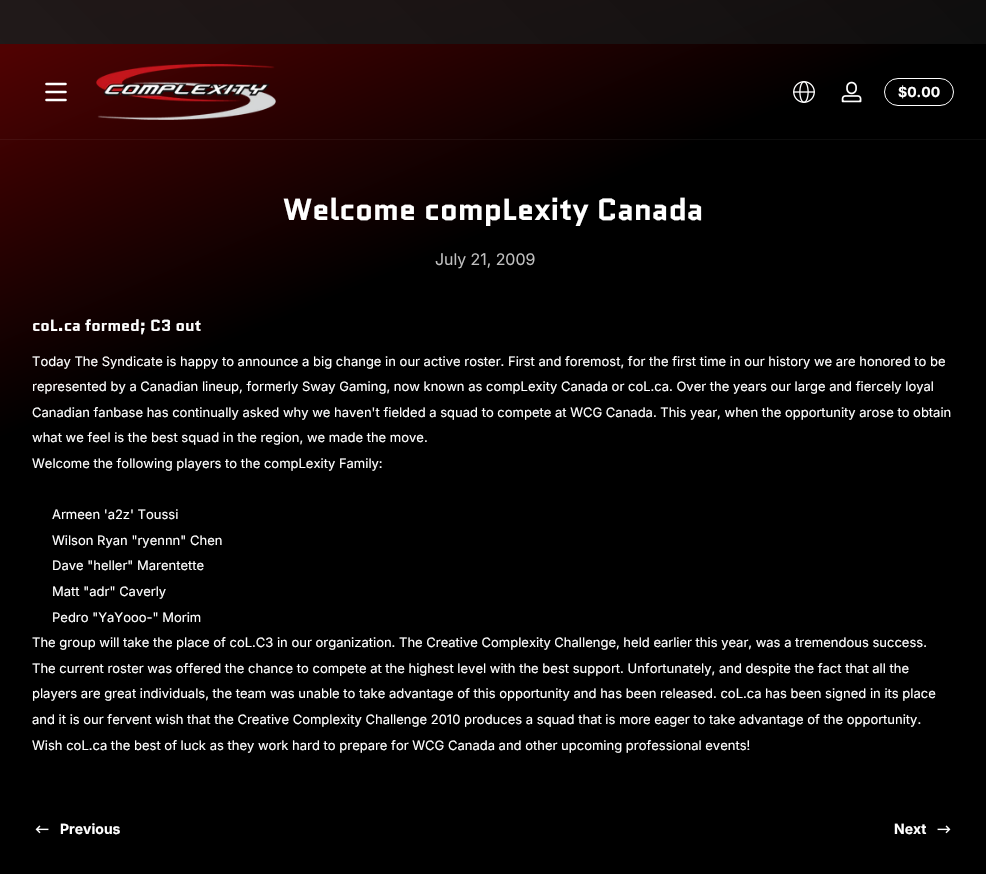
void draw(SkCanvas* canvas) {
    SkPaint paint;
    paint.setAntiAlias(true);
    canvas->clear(0xFFFFFFFF);
    {
        const SkColor colors[] = {0xFF000000, 0xFF000000, 0xFF500202};
        const float stops[] = {0, 0.66f, 0.96f};
        const SkPoint ends[] = {{725, 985}, {261, -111}};
        paint.setShader(SkGradientShader::MakeLinear(ends, colors, stops, 3, SkTileMode::kClamp));
        paint.setAlpha(255);
    }
    canvas->drawRect(SkRect::MakeXYWH(0, 0, 986, 874), paint);
    {
        const SkColor colors[] = {0xFF0D0D0D, 0xFF0D0D0D, 0xFF590F0F};
        const float stops[] = {0, 0.66f, 0.96f};
        const SkPoint ends[] = {{725, 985}, {261, -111}};
        paint.setShader(SkGradientShader::MakeLinear(ends, colors, stops, 3, SkTileMode::kClamp));
        paint.setAlpha(255);
    }
    canvas->drawRect(SkRect::MakeXYWH(0, 139, 986, 1), paint);
    {
        const SkColor colors[] = {0xFF222222, 0xCC111111};
        const float stops[] = {0, 1};
        const SkPoint ends[] = {{20, 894}, {966, -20}};
        paint.setShader(SkGradientShader::MakeLinear(ends, colors, stops, 2, SkTileMode::kClamp));
        paint.setAlpha(255);
    }
    canvas->drawRect(SkRect::MakeXYWH(0, 0, 986, 44), paint);
    paint.setStyle(SkPaint::kStroke_Style);
    paint.setStrokeWidth(2.6f);
    paint.setStrokeCap(SkPaint::kRound_Cap);
    paint.setShader(nullptr);
    paint.setColor(0xFFFFFFFF);
    canvas->drawPath(SkPathBuilder().moveTo(46.5f, 84).lineTo(65.5f, 84).moveTo(46.5f, 92).lineTo(65.5f, 92).moveTo(46.5f, 100).lineTo(65.5f, 100).detach(), paint);
    canvas->drawImageRect(SkImages::DeferredFromEncodedData(SkData::MakeFromFileName("img1.png")), SkRect::MakeXYWH(96, 64, 180, 56), SkSamplingOptions());
    canvas->drawImageRect(SkImages::DeferredFromEncodedData(SkData::MakeFromFileName("img2.png")), SkRect::MakeXYWH(793, 81, 22, 22), SkSamplingOptions());
    canvas->drawImageRect(SkImages::DeferredFromEncodedData(SkData::MakeFromFileName("img3.png")), SkRect::MakeXYWH(841, 81, 21, 22), SkSamplingOptions());
    paint.setStrokeWidth(1);
    paint.setStrokeCap(SkPaint::kButt_Cap);
    canvas->drawRoundRect(SkRect::MakeXYWH(884.5f, 78.5f, 69, 27), 13.5f, 13.5f, paint);
    SkFont font1(fontMgr->matchFamilyStyle("Inter", SkFontStyle::Bold()), 14);
    font1.setSubpixel(true);
    paint.setStyle(SkPaint::kFill_Style);
    canvas->drawString("$0.00", 898, 97, font1, paint);
    SkFont font2(fontMgr->matchFamilyStyle("Quantico", SkFontStyle::Bold()), 30.4f);
    font2.setSubpixel(true);
    canvas->drawString("Welcome compLexity Canada", 283, 220, font2, paint);
    SkFont font3(fontMgr->matchFamilyStyle("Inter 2", SkFontStyle::Normal()), 16);
    font3.setSubpixel(true);
    paint.setColor(0xFFBFBFBF);
    canvas->drawString("July 21, 2009", 435, 265, font3, paint);
    SkFont font4(fontMgr->matchFamilyStyle("Quantico", SkFontStyle::Bold()), 16);
    font4.setSubpixel(true);
    paint.setColor(0xFFFFFFFF);
    canvas->drawString("coL.ca formed; C3 out", 32, 331, font4, paint);
    SkFont font5(fontMgr->matchFamilyStyle("Inter", SkFontStyle::Normal()), 13);
    font5.setSubpixel(true);
    canvas->drawString("Today The Syndicate is happy to announce a big change in our active roster. First and foremost, for the first time in our history we are honored to be", 32, 366, font5, paint);
    canvas->drawString("represented by a Canadian lineup, formerly Sway Gaming, now known as compLexity Canada or coL.ca. Over the years our large and fiercely loyal", 32, 391, font5, paint);
    canvas->drawString("Canadian fanbase has continually asked why we haven't fielded a squad to compete at WCG Canada. This year, when the opportunity arose to obtain", 32, 417, font5, paint);
    canvas->drawString("what we feel is the best squad in the region, we made the move.", 32, 442, font5, paint);
    canvas->drawString("Welcome the following players to the compLexity Family:", 32, 468, font5, paint);
    canvas->drawString("Armeen 'a2z' Toussi", 52, 519, font5, paint);
    canvas->drawString("Wilson Ryan \"ryennn\" Chen", 52, 545, font5, paint);
    canvas->drawString("Dave \"heller\" Marentette", 52, 570, font5, paint);
    canvas->drawString("Matt \"adr\" Caverly", 52, 596, font5, paint);
    canvas->drawString("Pedro \"YaYooo-\" Morim", 52, 622, font5, paint);
    canvas->drawString("The group will take the place of coL.C3 in our organization. The Creative Complexity Challenge, held earlier this year, was a tremendous success.", 32, 647, font5, paint);
    canvas->drawString("The current roster was offered the chance to compete at the highest level with the best support. Unfortunately, and despite the fact that all the", 32, 673, font5, paint);
    canvas->drawString("players are great individuals, the team was unable to take advantage of this opportunity and has been released. coL.ca has been signed in its place", 32, 698, font5, paint);
    canvas->drawString("and it is our fervent wish that the Creative Complexity Challenge 2010 produces a squad that is more eager to take advantage of the opportunity.", 32, 724, font5, paint);
    canvas->drawString("Wish coL.ca the best of luck as they work hard to prepare for WCG Canada and other upcoming professional events!", 32, 750, font5, paint);
    canvas->drawImageRect(SkImages::DeferredFromEncodedData(SkData::MakeFromFileName("img4.png")), SkRect::MakeXYWH(35, 825, 14, 9), SkSamplingOptions());
    canvas->drawString("Previous", 60, 834, font1, paint);
    canvas->drawString("Next", 894, 834, font1, paint);
    canvas->drawImageRect(SkImages::DeferredFromEncodedData(SkData::MakeFromFileName("img5.png")), SkRect::MakeXYWH(937, 825, 14, 9), SkSamplingOptions());
}
